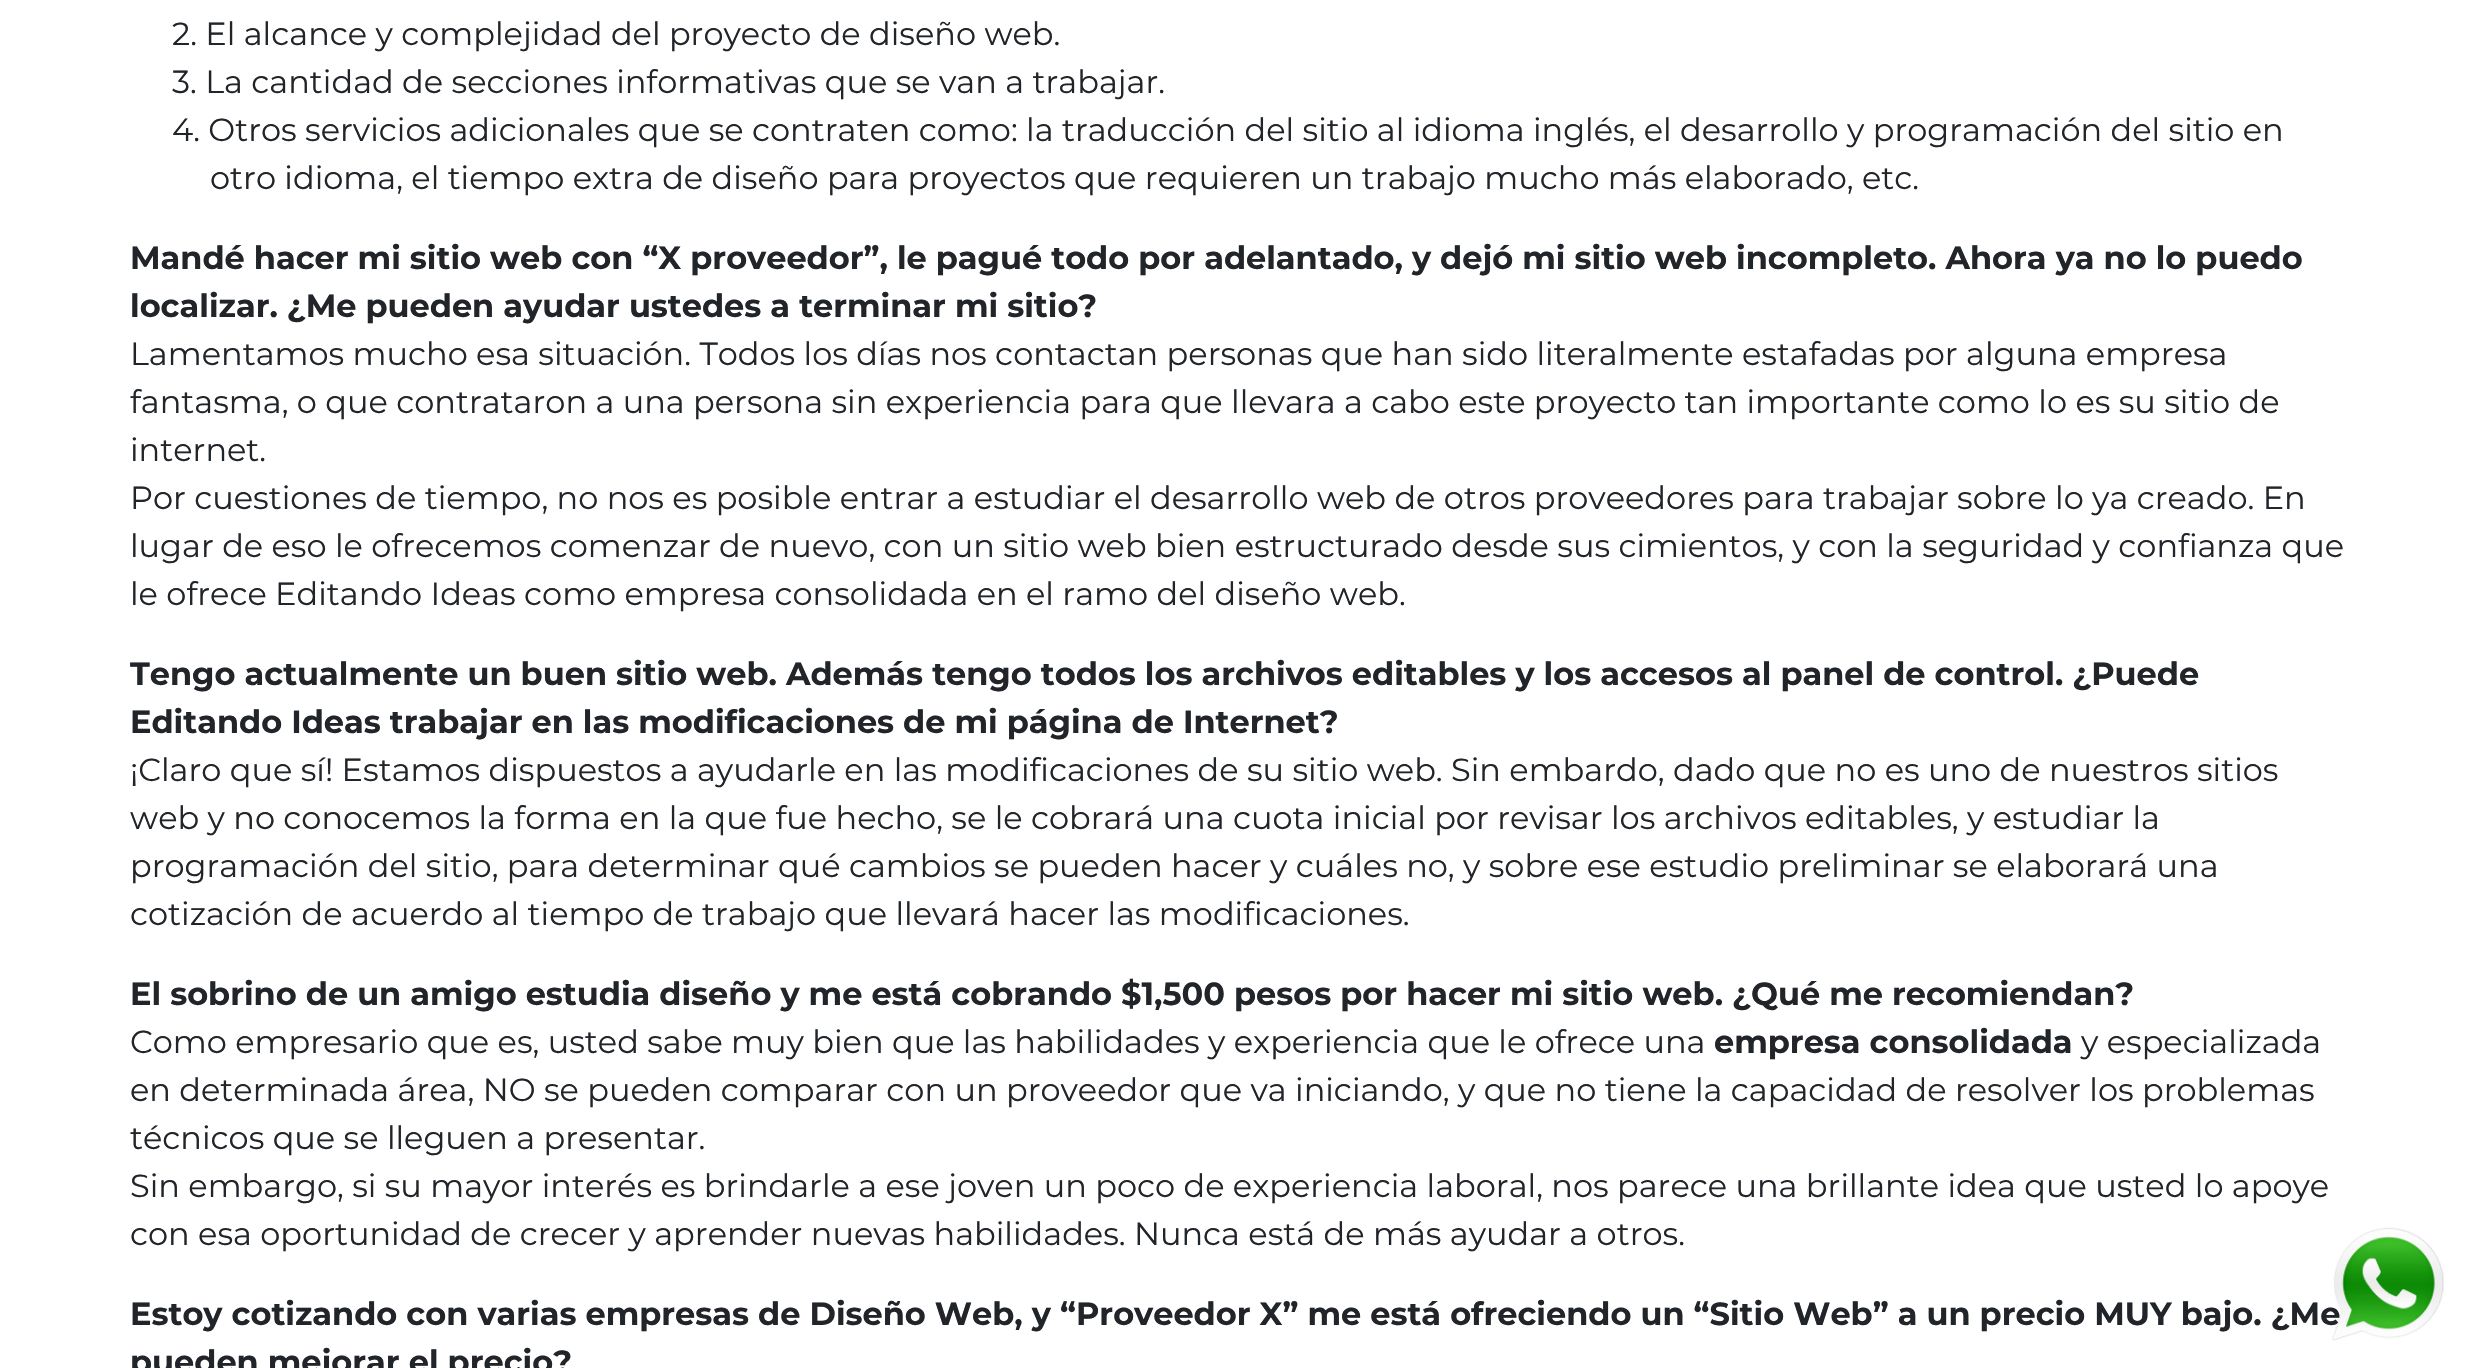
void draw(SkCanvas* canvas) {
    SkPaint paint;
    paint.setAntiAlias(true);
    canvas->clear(0xFFFFFFFF);
    SkFont font1(fontMgr->matchFamilyStyle("Montserrat", SkFontStyle::Normal()), 32);
    font1.setSubpixel(true);
    paint.setColor(0xFF212529);
    canvas->drawString("2. El alcance y complejidad del proyecto de diseño web.", 172, 45, font1, paint);
    canvas->drawString("3. La cantidad de secciones informativas que se van a trabajar.", 172, 93, font1, paint);
    canvas->drawString("4. Otros servicios adicionales que se contraten como: la traducción del sitio al idioma inglés, el desarrollo y programación del sitio en", 172, 141, font1, paint);
    canvas->drawString("otro idioma, el tiempo extra de diseño para proyectos que requieren un trabajo mucho más elaborado, etc.", 210, 189, font1, paint);
    SkFont font2(fontMgr->matchFamilyStyle("Montserrat", SkFontStyle::Bold()), 32);
    font2.setSubpixel(true);
    canvas->drawString("Mandé hacer mi sitio web con “X proveedor”, le pagué todo por adelantado, y dejó mi sitio web incompleto. Ahora ya no lo puedo", 130, 269, font2, paint);
    canvas->drawString("localizar. ¿Me pueden ayudar ustedes a terminar mi sitio?", 130, 317, font2, paint);
    canvas->drawString("Lamentamos mucho esa situación. Todos los días nos contactan personas que han sido literalmente estafadas por alguna empresa", 130, 365, font1, paint);
    canvas->drawString("fantasma, o que contrataron a una persona sin experiencia para que llevara a cabo este proyecto tan importante como lo es su sitio de", 130, 413, font1, paint);
    canvas->drawString("internet.", 130, 461, font1, paint);
    canvas->drawString("Por cuestiones de tiempo, no nos es posible entrar a estudiar el desarrollo web de otros proveedores para trabajar sobre lo ya creado. En", 130, 509, font1, paint);
    canvas->drawString("lugar de eso le ofrecemos comenzar de nuevo, con un sitio web bien estructurado desde sus cimientos, y con la seguridad y confianza que", 130, 557, font1, paint);
    canvas->drawString("le ofrece Editando Ideas como empresa consolidada en el ramo del diseño web.", 130, 605, font1, paint);
    canvas->drawString("Tengo actualmente un buen sitio web. Además tengo todos los archivos editables y los accesos al panel de control. ¿Puede", 130, 685, font2, paint);
    canvas->drawString("Editando Ideas trabajar en las modificaciones de mi página de Internet?", 130, 733, font2, paint);
    canvas->drawString("¡Claro que sí! Estamos dispuestos a ayudarle en las modificaciones de su sitio web. Sin embardo, dado que no es uno de nuestros sitios", 130, 781, font1, paint);
    canvas->drawString("web y no conocemos la forma en la que fue hecho, se le cobrará una cuota inicial por revisar los archivos editables, y estudiar la", 130, 829, font1, paint);
    canvas->drawString("programación del sitio, para determinar qué cambios se pueden hacer y cuáles no, y sobre ese estudio preliminar se elaborará una", 130, 877, font1, paint);
    canvas->drawString("cotización de acuerdo al tiempo de trabajo que llevará hacer las modificaciones.", 130, 925, font1, paint);
    canvas->drawString("El sobrino de un amigo estudia diseño y me está cobrando $1,500 pesos por hacer mi sitio web. ¿Qué me recomiendan?", 130, 1005, font2, paint);
    canvas->drawString("Como empresario que es, usted sabe muy bien que las habilidades y experiencia que le ofrece una", 130, 1053, font1, paint);
    canvas->drawString("empresa consolidada", 1714, 1053, font2, paint);
    canvas->drawString("y especializada", 2081, 1053, font1, paint);
    canvas->drawString("en determinada área, NO se pueden comparar con un proveedor que va iniciando, y que no tiene la capacidad de resolver los problemas", 130, 1101, font1, paint);
    canvas->drawString("técnicos que se lleguen a presentar.", 130, 1149, font1, paint);
    canvas->drawString("Sin embargo, si su mayor interés es brindarle a ese joven un poco de experiencia laboral, nos parece una brillante idea que usted lo apoye", 130, 1197, font1, paint);
    canvas->drawString("con esa oportunidad de crecer y aprender nuevas habilidades. Nunca está de más ayudar a otros.", 130, 1245, font1, paint);
    canvas->drawString("Estoy cotizando con varias empresas de Diseño Web, y “Proveedor X” me está ofreciendo un “Sitio Web” a un precio MUY bajo. ¿Me", 130, 1325, font2, paint);
    canvas->drawString("pueden mejorar el precio?", 130, 1373, font2, paint);
    canvas->drawImageRect(SkImages::DeferredFromEncodedData(SkData::MakeFromFileName("img1.png")), SkRect::MakeXYWH(2332, 1227, 112, 114), SkSamplingOptions());
}
